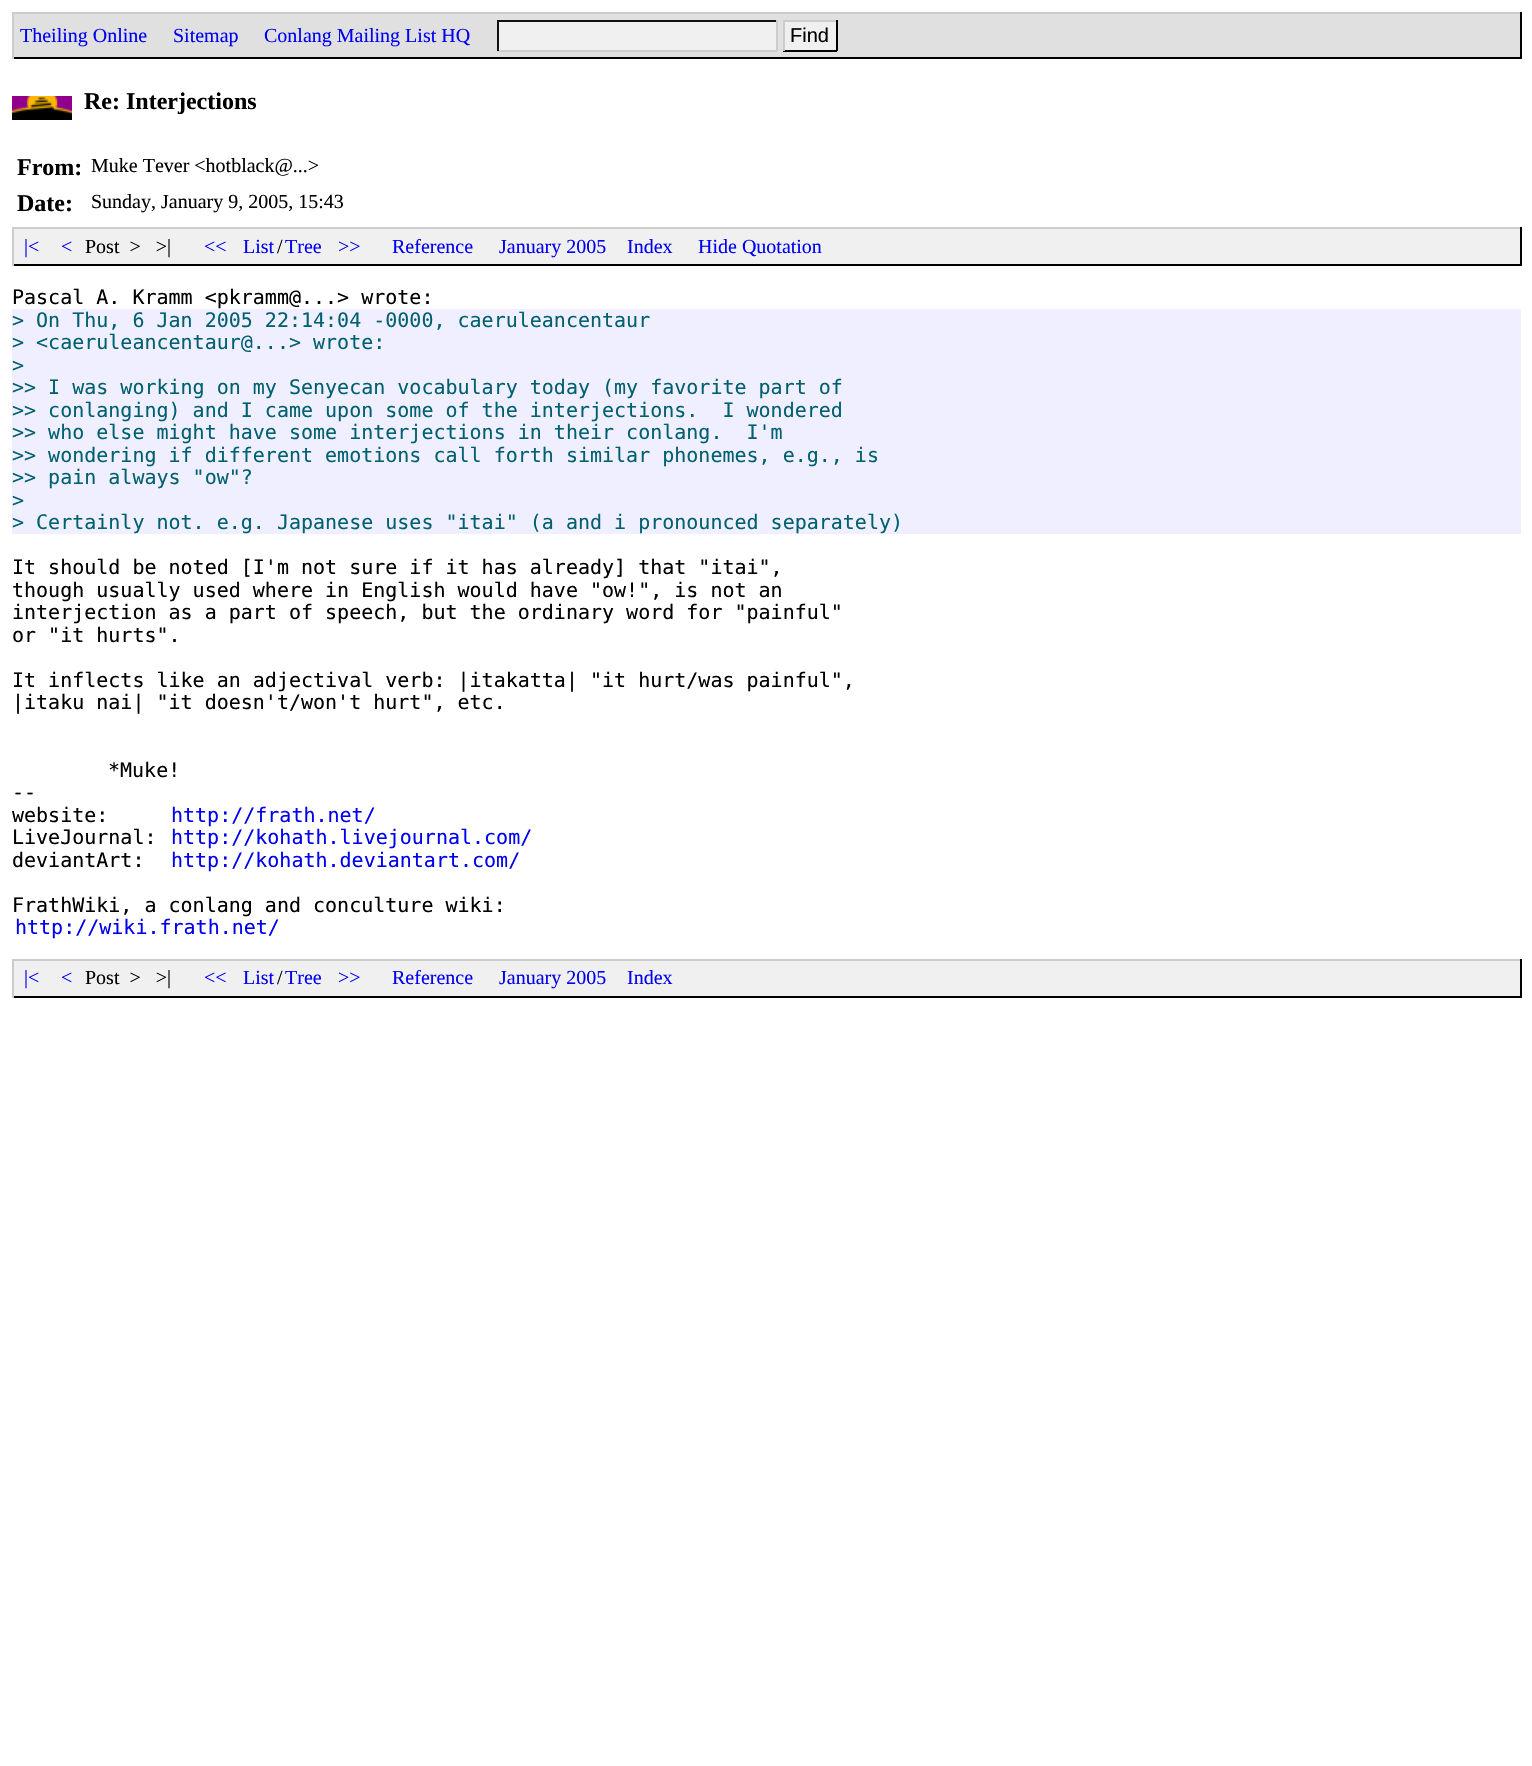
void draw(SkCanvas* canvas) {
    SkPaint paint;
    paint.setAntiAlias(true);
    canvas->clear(0xFFFFFFFF);
    paint.setColor(0xFFE0E0E0);
    canvas->drawRect(SkRect::MakeXYWH(14, 14, 1506, 43), paint);
    paint.setColor(0xFFCCCCCC);
    canvas->drawRect(SkRect::MakeXYWH(12, 12, 1509, 2), paint);
    paint.setColor(0xFF000000);
    canvas->drawRect(SkRect::MakeXYWH(1520, 12, 2, 47), paint);
    canvas->drawRect(SkRect::MakeXYWH(12, 57, 1509, 2), paint);
    paint.setColor(0xFFCCCCCC);
    canvas->drawRect(SkRect::MakeXYWH(12, 12, 2, 47), paint);
    SkFont font1(fontMgr->matchFamilyStyle("Liberation Serif", SkFontStyle::Normal()), 20);
    font1.setSubpixel(true);
    paint.setColor(0xFF0000F0);
    canvas->drawString("Theiling Online", 20, 42, font1, paint);
    canvas->drawString("Sitemap", 173, 42, font1, paint);
    canvas->drawString("Conlang Mailing List HQ", 264, 42, font1, paint);
    paint.setColor(0xFFF0F0F0);
    canvas->drawRect(SkRect::MakeXYWH(499, 22, 277, 28), paint);
    paint.setColor(0xFF111111);
    canvas->drawRect(SkRect::MakeXYWH(497, 20, 280, 2), paint);
    paint.setColor(0xFFCCCCCC);
    canvas->drawRect(SkRect::MakeXYWH(776, 20, 2, 31), paint);
    canvas->drawRect(SkRect::MakeXYWH(497, 50, 280, 2), paint);
    paint.setColor(0xFF111111);
    canvas->drawRect(SkRect::MakeXYWH(497, 20, 2, 31), paint);
    paint.setColor(0xFFF0F0F0);
    canvas->drawRect(SkRect::MakeXYWH(785, 22, 51, 28), paint);
    paint.setColor(0xFFCCCCCC);
    canvas->drawRect(SkRect::MakeXYWH(783, 20, 54, 2), paint);
    paint.setColor(0xFF000000);
    canvas->drawRect(SkRect::MakeXYWH(836, 20, 2, 31), paint);
    canvas->drawRect(SkRect::MakeXYWH(783, 50, 54, 2), paint);
    paint.setColor(0xFFCCCCCC);
    canvas->drawRect(SkRect::MakeXYWH(783, 20, 2, 31), paint);
    SkFont font2(fontMgr->matchFamilyStyle("Liberation Sans", SkFontStyle::Normal()), 20);
    font2.setSubpixel(true);
    paint.setColor(0xFF000000);
    canvas->drawString("Find", 790, 42, font2, paint);
    canvas->drawImageRect(SkImages::DeferredFromEncodedData(SkData::MakeFromFileName("img1.png")), SkRect::MakeXYWH(12, 96, 60, 24), SkSamplingOptions());
    SkFont font3(fontMgr->matchFamilyStyle("Liberation Serif", SkFontStyle::Bold()), 24);
    font3.setSubpixel(true);
    canvas->drawString("Re: Interjections", 84, 109, font3, paint);
    canvas->drawString("From:", 17, 175, font3, paint);
    canvas->drawString("Muke Tever <hotblack@...>", 91, 172, font1, paint);
    canvas->drawString("Date:", 17, 211, font3, paint);
    canvas->drawString("Sunday, January 9, 2005, 15:43", 91, 208, font1, paint);
    paint.setColor(0xFFF0F0F0);
    canvas->drawRect(SkRect::MakeXYWH(14, 229, 1506, 35), paint);
    paint.setColor(0xFFCCCCCC);
    canvas->drawRect(SkRect::MakeXYWH(12, 227, 1509, 2), paint);
    paint.setColor(0xFF000000);
    canvas->drawRect(SkRect::MakeXYWH(1520, 227, 2, 39), paint);
    canvas->drawRect(SkRect::MakeXYWH(12, 264, 1509, 2), paint);
    paint.setColor(0xFFCCCCCC);
    canvas->drawRect(SkRect::MakeXYWH(12, 227, 2, 39), paint);
    paint.setColor(0xFF0000F0);
    canvas->drawString("|<", 24, 253, font1, paint);
    canvas->drawString("<", 61, 253, font1, paint);
    paint.setColor(0xFF000000);
    canvas->drawString("Post  >   >|", 85, 253, font1, paint);
    paint.setColor(0xFF0000F0);
    canvas->drawString("<<", 204, 253, font1, paint);
    canvas->drawString("List", 243, 253, font1, paint);
    paint.setColor(0xFF000000);
    canvas->drawString("/", 277, 253, font1, paint);
    paint.setColor(0xFF0000F0);
    canvas->drawString("Tree", 285, 253, font1, paint);
    canvas->drawString(">>", 338, 253, font1, paint);
    canvas->drawString("Reference", 392, 253, font1, paint);
    canvas->drawString("January 2005", 499, 253, font1, paint);
    canvas->drawString("Index", 627, 253, font1, paint);
    canvas->drawString("Hide Quotation", 698, 253, font1, paint);
    SkFont font4(fontMgr->matchFamilyStyle("DejaVu Sans Mono", SkFontStyle::Normal()), 20);
    font4.setSubpixel(true);
    paint.setColor(0xFF000000);
    canvas->drawString("Pascal A. Kramm <pkramm@...> wrote:", 12, 304, font4, paint);
    paint.setColor(0xFFEFEFFF);
    canvas->drawRect(SkRect::MakeXYWH(12, 309, 1509, 225), paint);
    paint.setColor(0xFF006070);
    canvas->drawString("> On Thu, 6 Jan 2005 22:14:04 -0000, caeruleancentaur", 12, 327, font4, paint);
    canvas->drawString("> <caeruleancentaur@...> wrote:", 12, 349, font4, paint);
    canvas->drawString(">", 12, 372, font4, paint);
    canvas->drawString(">> I was working on my Senyecan vocabulary today (my favorite part of", 12, 394, font4, paint);
    canvas->drawString(">> conlanging) and I came upon some of the interjections.  I wondered", 12, 417, font4, paint);
    canvas->drawString(">> who else might have some interjections in their conlang.  I'm", 12, 439, font4, paint);
    canvas->drawString(">> wondering if different emotions call forth similar phonemes, e.g., is", 12, 462, font4, paint);
    canvas->drawString(">> pain always \"ow\"?", 12, 484, font4, paint);
    canvas->drawString(">", 12, 507, font4, paint);
    canvas->drawString("> Certainly not. e.g. Japanese uses \"itai\" (a and i pronounced separately)", 12, 529, font4, paint);
    paint.setColor(0xFF000000);
    canvas->drawString("It should be noted [I'm not sure if it has already] that \"itai\",", 12, 574, font4, paint);
    canvas->drawString("though usually used where in English would have \"ow!\", is not an", 12, 597, font4, paint);
    canvas->drawString("interjection as a part of speech, but the ordinary word for \"painful\"", 12, 619, font4, paint);
    canvas->drawString("or \"it hurts\".", 12, 642, font4, paint);
    canvas->drawString("It inflects like an adjectival verb: |itakatta| \"it hurt/was painful\",", 12, 687, font4, paint);
    canvas->drawString("|itaku nai| \"it doesn't/won't hurt\", etc.", 12, 709, font4, paint);
    canvas->drawString("*Muke!", 108, 777, font4, paint);
    canvas->drawString("--", 12, 799, font4, paint);
    canvas->drawString("website:", 12, 822, font4, paint);
    paint.setColor(0xFF0000F0);
    canvas->drawString("http://frath.net/", 171, 822, font4, paint);
    paint.setColor(0xFF000000);
    canvas->drawString("LiveJournal:", 12, 844, font4, paint);
    paint.setColor(0xFF0000F0);
    canvas->drawString("http://kohath.livejournal.com/", 171, 844, font4, paint);
    paint.setColor(0xFF000000);
    canvas->drawString("deviantArt:", 12, 867, font4, paint);
    paint.setColor(0xFF0000F0);
    canvas->drawString("http://kohath.deviantart.com/", 171, 867, font4, paint);
    paint.setColor(0xFF000000);
    canvas->drawString("FrathWiki, a conlang and conculture wiki:", 12, 912, font4, paint);
    paint.setColor(0xFF0000F0);
    canvas->drawString("http://wiki.frath.net/", 15, 934, font4, paint);
    paint.setColor(0xFFF0F0F0);
    canvas->drawRect(SkRect::MakeXYWH(14, 961, 1506, 35), paint);
    paint.setColor(0xFFCCCCCC);
    canvas->drawRect(SkRect::MakeXYWH(12, 959, 1509, 2), paint);
    paint.setColor(0xFF000000);
    canvas->drawRect(SkRect::MakeXYWH(1520, 959, 2, 39), paint);
    canvas->drawRect(SkRect::MakeXYWH(12, 996, 1509, 2), paint);
    paint.setColor(0xFFCCCCCC);
    canvas->drawRect(SkRect::MakeXYWH(12, 959, 2, 39), paint);
    paint.setColor(0xFF0000F0);
    canvas->drawString("|<", 24, 984, font1, paint);
    canvas->drawString("<", 61, 984, font1, paint);
    paint.setColor(0xFF000000);
    canvas->drawString("Post  >   >|", 85, 984, font1, paint);
    paint.setColor(0xFF0000F0);
    canvas->drawString("<<", 204, 984, font1, paint);
    canvas->drawString("List", 243, 984, font1, paint);
    paint.setColor(0xFF000000);
    canvas->drawString("/", 277, 984, font1, paint);
    paint.setColor(0xFF0000F0);
    canvas->drawString("Tree", 285, 984, font1, paint);
    canvas->drawString(">>", 338, 984, font1, paint);
    canvas->drawString("Reference", 392, 984, font1, paint);
    canvas->drawString("January 2005", 499, 984, font1, paint);
    canvas->drawString("Index", 627, 984, font1, paint);
}
